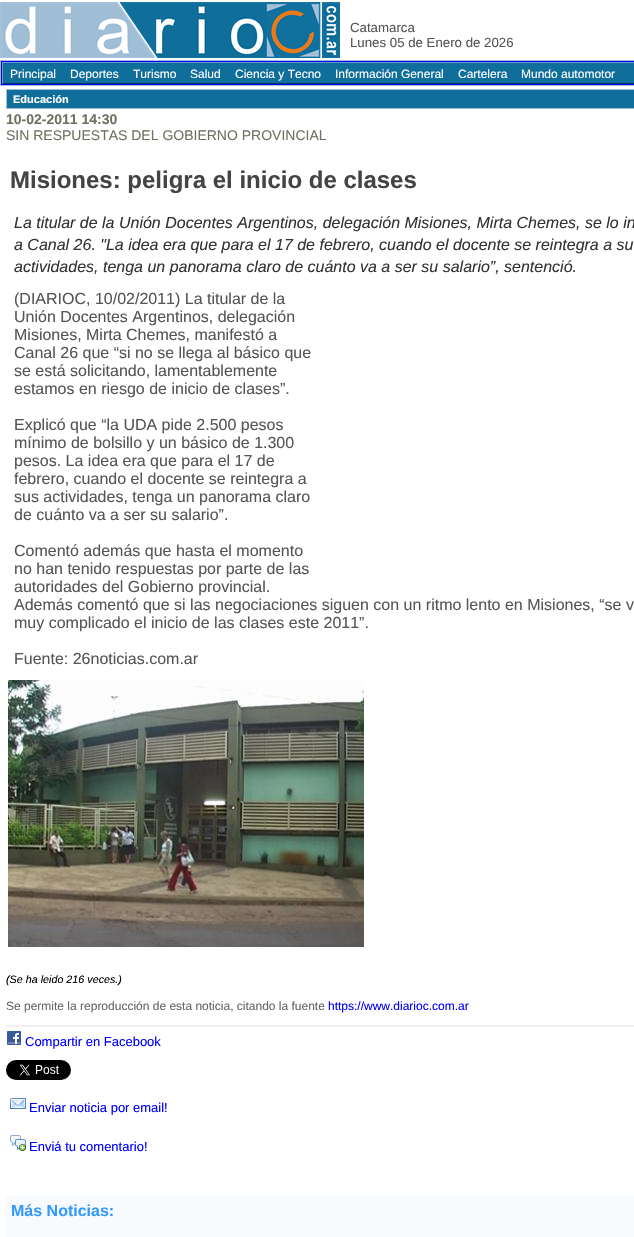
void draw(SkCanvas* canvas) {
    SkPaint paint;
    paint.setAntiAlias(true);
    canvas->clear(0xFFFFFFFF);
    canvas->drawImageRect(SkImages::DeferredFromEncodedData(SkData::MakeFromFileName("img1.png")), SkRect::MakeXYWH(0, 2, 340, 56), SkSamplingOptions());
    SkFont font1(fontMgr->matchFamilyStyle("Liberation Sans", SkFontStyle::Normal()), 13.25f);
    font1.setSubpixel(true);
    paint.setColor(0xFF555555);
    canvas->drawString("Catamarca", 350, 32, font1, paint);
    canvas->drawString("Lunes 05 de Enero de 2026", 350, 47, font1, paint);
    paint.setColor(0xFFA1BED7);
    canvas->drawRect(SkRect::MakeXYWH(0, 60, 634, 26), paint);
    paint.setStyle(SkPaint::kStroke_Style);
    paint.setStrokeWidth(1);
    paint.setColor(0xFF0000FF);
    canvas->drawRect(SkRect::MakeXYWH(1.5f, 61.5f, 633, 23), paint);
    paint.setStyle(SkPaint::kFill_Style);
    paint.setColor(0xFF106E9B);
    canvas->drawRect(SkRect::MakeXYWH(3, 63, 631, 20), paint);
    paint.setColor(0xFF6699CC);
    canvas->drawRect(SkRect::MakeXYWH(2, 62, 632, 1), paint);
    paint.setColor(0xFF003366);
    canvas->drawRect(SkRect::MakeXYWH(2, 83, 632, 1), paint);
    paint.setColor(0xFF6699CC);
    canvas->drawRect(SkRect::MakeXYWH(2, 62, 1, 22), paint);
    SkFont font2(fontMgr->matchFamilyStyle("Liberation Sans", SkFontStyle::Normal()), 12);
    font2.setSubpixel(true);
    paint.setColor(0xFFFFFFFF);
    canvas->drawString("Principal", 10, 78, font2, paint);
    canvas->drawString("Deportes", 70, 78, font2, paint);
    canvas->drawString("Turismo", 133, 78, font2, paint);
    canvas->drawString("Salud", 190, 78, font2, paint);
    canvas->drawString("Ciencia y Tecno", 235, 78, font2, paint);
    canvas->drawString("Información General", 335, 78, font2, paint);
    canvas->drawString("Cartelera", 458, 78, font2, paint);
    canvas->drawString("Mundo automotor", 521, 78, font2, paint);
    paint.setColor(0xFF106E9B);
    canvas->drawRect(SkRect::MakeXYWH(6.5f, 89.5f, 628, 19), paint);
    paint.setStyle(SkPaint::kStroke_Style);
    paint.setColor(0xFFA1BED7);
    canvas->drawRect(SkRect::MakeXYWH(6.5f, 89.5f, 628, 19), paint);
    SkFont font3(fontMgr->matchFamilyStyle("Liberation Sans", SkFontStyle::Bold()), 11);
    font3.setSubpixel(true);
    paint.setStyle(SkPaint::kFill_Style);
    paint.setColor(0xFFFFFFFF);
    canvas->drawString("Educación", 13, 103, font3, paint);
    SkFont font4(fontMgr->matchFamilyStyle("Liberation Sans", SkFontStyle::Bold()), 14);
    font4.setSubpixel(true);
    paint.setColor(0xFF707060);
    canvas->drawString("10-02-2011 14:30", 6, 124, font4, paint);
    SkFont font5(fontMgr->matchFamilyStyle("Liberation Sans", SkFontStyle::Normal()), 14);
    font5.setSubpixel(true);
    canvas->drawString("SIN RESPUESTAS DEL GOBIERNO PROVINCIAL", 6, 140, font5, paint);
    SkFont font6(fontMgr->matchFamilyStyle("Liberation Sans", SkFontStyle::Bold()), 24);
    font6.setSubpixel(true);
    paint.setColor(0xFF444444);
    canvas->drawString("Misiones: peligra el inicio de clases", 10, 188, font6, paint);
    SkFont font7(fontMgr->matchFamilyStyle("Liberation Sans", SkFontStyle::Italic()), 16);
    font7.setSubpixel(true);
    paint.setColor(0xFF333333);
    canvas->drawString("La titular de la Unión Docentes Argentinos, delegación Misiones, Mirta Chemes, se lo in", 14, 228, font7, paint);
    canvas->drawString("a Canal 26. \"La idea era que para el 17 de febrero, cuando el docente se reintegra a su", 14, 250, font7, paint);
    canvas->drawString("actividades, tenga un panorama claro de cuánto va a ser su salario”, sentenció.", 14, 272, font7, paint);
    SkFont font8(fontMgr->matchFamilyStyle("Liberation Sans", SkFontStyle::Normal()), 16);
    font8.setSubpixel(true);
    paint.setColor(0xFF555555);
    canvas->drawString("(DIARIOC, 10/02/2011) La titular de la", 14, 304, font8, paint);
    canvas->drawString("Unión Docentes Argentinos, delegación", 14, 322, font8, paint);
    canvas->drawString("Misiones, Mirta Chemes, manifestó a", 14, 340, font8, paint);
    canvas->drawString("Canal 26 que “si no se llega al básico que", 14, 358, font8, paint);
    canvas->drawString("se está solicitando, lamentablemente", 14, 376, font8, paint);
    canvas->drawString("estamos en riesgo de inicio de clases”.", 14, 394, font8, paint);
    canvas->drawString("Explicó que “la UDA pide 2.500 pesos", 14, 430, font8, paint);
    canvas->drawString("mínimo de bolsillo y un básico de 1.300", 14, 448, font8, paint);
    canvas->drawString("pesos. La idea era que para el 17 de", 14, 466, font8, paint);
    canvas->drawString("febrero, cuando el docente se reintegra a", 14, 484, font8, paint);
    canvas->drawString("sus actividades, tenga un panorama claro", 14, 502, font8, paint);
    canvas->drawString("de cuánto va a ser su salario”.", 14, 520, font8, paint);
    canvas->drawString("Comentó además que hasta el momento", 14, 556, font8, paint);
    canvas->drawString("no han tenido respuestas por parte de las", 14, 574, font8, paint);
    canvas->drawString("autoridades del Gobierno provincial.", 14, 592, font8, paint);
    canvas->drawString("Además comentó que si las negociaciones siguen con un ritmo lento en Misiones, “se v", 14, 610, font8, paint);
    canvas->drawString("muy complicado el inicio de las clases este 2011”.", 14, 628, font8, paint);
    canvas->drawString("Fuente: 26noticias.com.ar", 14, 664, font8, paint);
    canvas->drawImageRect(SkImages::DeferredFromEncodedData(SkData::MakeFromFileName("img2.png")), SkRect::MakeXYWH(8, 680, 356, 267), SkSamplingOptions());
    SkFont font9(fontMgr->matchFamilyStyle("Liberation Sans", SkFontStyle::Italic()), 10.75f);
    font9.setSubpixel(true);
    paint.setColor(0xFF000000);
    canvas->drawString("(Se ha leido 216 veces.)", 6, 983, font9, paint);
    paint.setColor(0xFF666666);
    canvas->drawString("Se permite la reproducción de esta noticia, citando la fuente", 6, 1010, font2, paint);
    paint.setColor(0xFF0000FF);
    canvas->drawString("https://www.diarioc.com.ar", 328, 1010, font2, paint);
    paint.setColor(0xFFF2F2F2);
    canvas->drawRect(SkRect::MakeXYWH(6, 1025, 628, 2), paint);
    canvas->drawImageRect(SkImages::DeferredFromEncodedData(SkData::MakeFromFileName("img3.png")), SkRect::MakeXYWH(7, 1031, 14, 14), SkSamplingOptions());
    SkFont font10(fontMgr->matchFamilyStyle("Liberation Sans", SkFontStyle::Normal()), 13);
    font10.setSubpixel(true);
    paint.setColor(0xFF0000FF);
    canvas->drawString("Compartir en Facebook", 25, 1046, font10, paint);
    canvas->drawImageRect(SkImages::DeferredFromEncodedData(SkData::MakeFromFileName("img4.png")), SkRect::MakeXYWH(6, 1060, 65, 20), SkSamplingOptions());
    canvas->drawImageRect(SkImages::DeferredFromEncodedData(SkData::MakeFromFileName("img5.png")), SkRect::MakeXYWH(10, 1098, 16, 11), SkSamplingOptions());
    canvas->drawString("Enviar noticia por email!", 29, 1112, font10, paint);
    canvas->drawImageRect(SkImages::DeferredFromEncodedData(SkData::MakeFromFileName("img6.png")), SkRect::MakeXYWH(10, 1135, 16, 16), SkSamplingOptions());
    canvas->drawString("Enviá tu comentario!", 29, 1151, font10, paint);
    paint.setColor(0xFFF7FBFD);
    canvas->drawRect(SkRect::MakeXYWH(6, 1196, 628, 41), paint);
    SkFont font11(fontMgr->matchFamilyStyle("Liberation Sans", SkFontStyle::Bold()), 16);
    font11.setSubpixel(true);
    paint.setColor(0xFF3399FF);
    canvas->drawString("Más Noticias:", 11, 1216, font11, paint);
}
